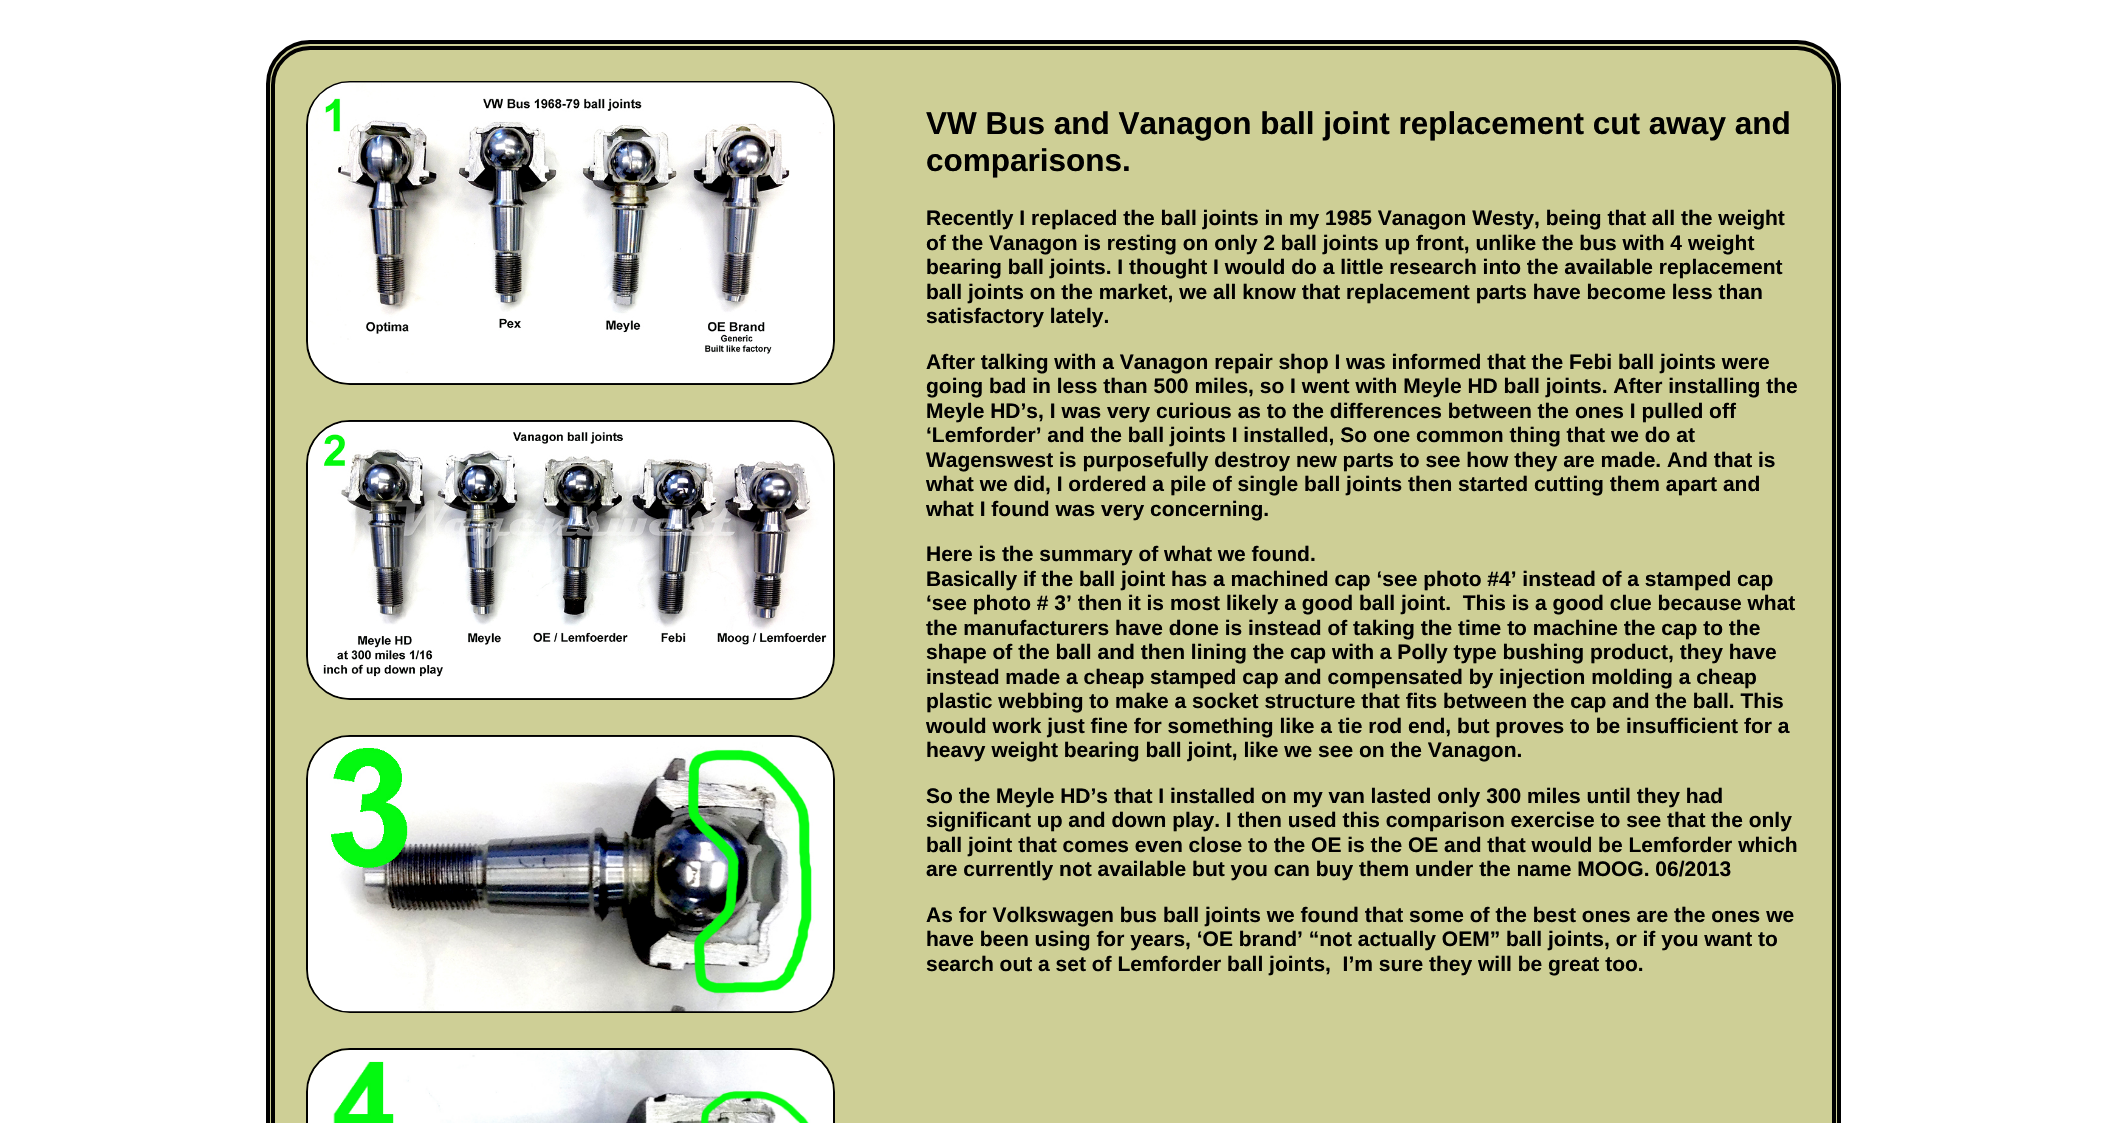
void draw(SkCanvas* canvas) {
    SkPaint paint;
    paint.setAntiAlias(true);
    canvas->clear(0xFFFFFFFF);
    paint.setColor(0xFFCECF96);
    canvas->drawRoundRect(SkRect::MakeXYWH(268, 42, 1571, 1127), 42, 42, paint);
    paint.setStyle(SkPaint::kStroke_Style);
    paint.setStrokeWidth(4);
    paint.setColor(0xFF000000);
    canvas->drawRoundRect(SkRect::MakeXYWH(268, 42, 1571, 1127), 42, 42, paint);
    canvas->drawRoundRect(SkRect::MakeXYWH(273, 48, 1561, 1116), 37, 37, paint);
    paint.setStrokeWidth(2);
    canvas->drawRoundRect(SkRect::MakeXYWH(307, 82, 527, 302), 43, 43, paint);
    canvas->drawImageRect(SkImages::DeferredFromEncodedData(SkData::MakeFromFileName("img1.png")), SkRect::MakeXYWH(308, 82, 525, 302), SkSamplingOptions());
    canvas->drawRoundRect(SkRect::MakeXYWH(307, 421, 527, 278), 43, 43, paint);
    canvas->drawImageRect(SkImages::DeferredFromEncodedData(SkData::MakeFromFileName("img2.png")), SkRect::MakeXYWH(308, 421, 525, 278), SkSamplingOptions());
    canvas->drawRoundRect(SkRect::MakeXYWH(307, 736, 527, 276), 43, 43, paint);
    canvas->drawImageRect(SkImages::DeferredFromEncodedData(SkData::MakeFromFileName("img3.png")), SkRect::MakeXYWH(308, 736, 525, 276), SkSamplingOptions());
    canvas->drawRoundRect(SkRect::MakeXYWH(307, 1049, 527, 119), 43, 43, paint);
    canvas->drawImageRect(SkImages::DeferredFromEncodedData(SkData::MakeFromFileName("img4.png")), SkRect::MakeXYWH(308, 1050, 525, 73), SkSamplingOptions());
    SkFont font1(fontMgr->matchFamilyStyle("Liberation Sans", SkFontStyle::Bold()), 31.5f);
    font1.setSubpixel(true);
    paint.setStyle(SkPaint::kFill_Style);
    canvas->drawString("VW Bus and Vanagon ball joint replacement cut away and", 926, 134, font1, paint);
    canvas->drawString("comparisons.", 926, 171, font1, paint);
    SkFont font2(fontMgr->matchFamilyStyle("Liberation Sans", SkFontStyle::Bold()), 21);
    font2.setSubpixel(true);
    canvas->drawString("Recently I replaced the ball joints in my 1985 Vanagon Westy, being that all the weight", 926, 225, font2, paint);
    canvas->drawString("of the Vanagon is resting on only 2 ball joints up front, unlike the bus with 4 weight", 926, 250, font2, paint);
    canvas->drawString("bearing ball joints. I thought I would do a little research into the available replacement", 926, 274, font2, paint);
    canvas->drawString("ball joints on the market, we all know that replacement parts have become less than", 926, 299, font2, paint);
    canvas->drawString("satisfactory lately.", 926, 323, font2, paint);
    canvas->drawString("After talking with a Vanagon repair shop I was informed that the Febi ball joints were", 926, 369, font2, paint);
    canvas->drawString("going bad in less than 500 miles, so I went with Meyle HD ball joints. After installing the", 926, 393, font2, paint);
    canvas->drawString("Meyle HD’s, I was very curious as to the differences between the ones I pulled off", 926, 418, font2, paint);
    canvas->drawString("‘Lemforder’ and the ball joints I installed, So one common thing that we do at", 926, 442, font2, paint);
    canvas->drawString("Wagenswest is purposefully destroy new parts to see how they are made. And that is", 926, 467, font2, paint);
    canvas->drawString("what we did, I ordered a pile of single ball joints then started cutting them apart and", 926, 491, font2, paint);
    canvas->drawString("what I found was very concerning.", 926, 516, font2, paint);
    canvas->drawString("Here is the summary of what we found.", 926, 561, font2, paint);
    canvas->drawString("Basically if the ball joint has a machined cap ‘see photo #4’ instead of a stamped cap", 926, 586, font2, paint);
    canvas->drawString("‘see photo # 3’ then it is most likely a good ball joint.  This is a good clue because what", 926, 610, font2, paint);
    canvas->drawString("the manufacturers have done is instead of taking the time to machine the cap to the", 926, 635, font2, paint);
    canvas->drawString("shape of the ball and then lining the cap with a Polly type bushing product, they have", 926, 659, font2, paint);
    canvas->drawString("instead made a cheap stamped cap and compensated by injection molding a cheap", 926, 684, font2, paint);
    canvas->drawString("plastic webbing to make a socket structure that fits between the cap and the ball. This", 926, 708, font2, paint);
    canvas->drawString("would work just fine for something like a tie rod end, but proves to be insufficient for a", 926, 733, font2, paint);
    canvas->drawString("heavy weight bearing ball joint, like we see on the Vanagon.", 926, 757, font2, paint);
    canvas->drawString("So the Meyle HD’s that I installed on my van lasted only 300 miles until they had", 926, 803, font2, paint);
    canvas->drawString("significant up and down play. I then used this comparison exercise to see that the only", 926, 827, font2, paint);
    canvas->drawString("ball joint that comes even close to the OE is the OE and that would be Lemforder which", 926, 852, font2, paint);
    canvas->drawString("are currently not available but you can buy them under the name MOOG. 06/2013", 926, 876, font2, paint);
    canvas->drawString("As for Volkswagen bus ball joints we found that some of the best ones are the ones we", 926, 922, font2, paint);
    canvas->drawString("have been using for years, ‘OE brand’ “not actually OEM” ball joints, or if you want to", 926, 946, font2, paint);
    canvas->drawString("search out a set of Lemforder ball joints,  I’m sure they will be great too.", 926, 971, font2, paint);
}
